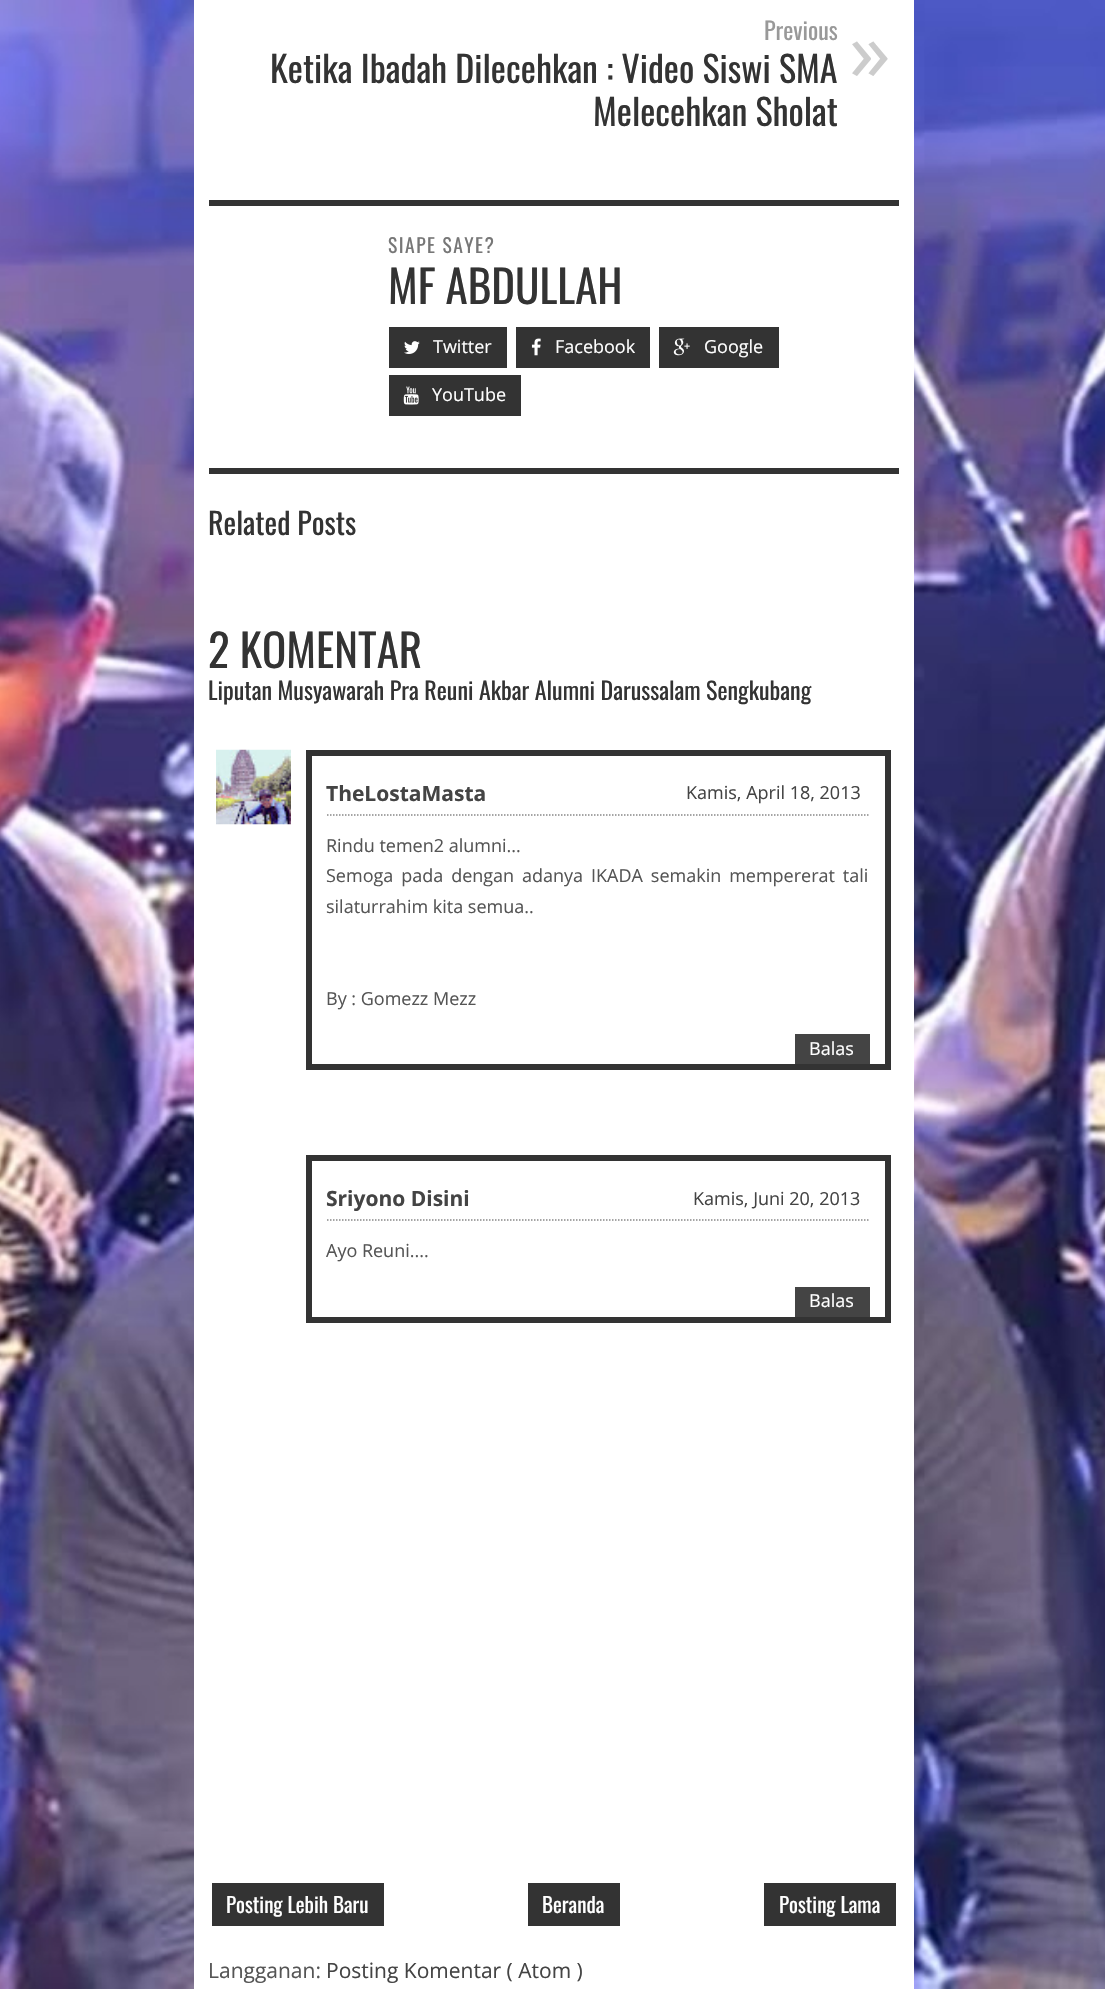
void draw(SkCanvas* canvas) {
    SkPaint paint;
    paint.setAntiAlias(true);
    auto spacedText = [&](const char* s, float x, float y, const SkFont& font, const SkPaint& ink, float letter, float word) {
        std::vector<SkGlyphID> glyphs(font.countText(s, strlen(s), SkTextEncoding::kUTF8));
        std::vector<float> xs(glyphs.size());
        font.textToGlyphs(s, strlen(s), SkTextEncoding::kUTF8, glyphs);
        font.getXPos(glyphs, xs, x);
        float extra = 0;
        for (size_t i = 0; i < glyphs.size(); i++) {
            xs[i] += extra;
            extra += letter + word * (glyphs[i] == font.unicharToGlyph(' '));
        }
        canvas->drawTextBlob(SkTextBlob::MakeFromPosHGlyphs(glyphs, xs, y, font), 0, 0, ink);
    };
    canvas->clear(0xFFFFFFFF);
    canvas->drawImageRect(SkImages::DeferredFromEncodedData(SkData::MakeFromFileName("img1.png")), SkRect::MakeXYWH(0, 0, 1105, 1989), SkSamplingOptions());
    paint.setColor(0xFFFFFFFF);
    canvas->drawRect(SkRect::MakeXYWH(194, 0, 720, 1989), paint);
    SkFont font1(fontMgr->matchFamilyStyle("Oswald", SkFontStyle::Normal()), 24);
    font1.setSubpixel(true);
    paint.setColor(0xFF999999);
    canvas->drawString("Previous", 764, 40, font1, paint);
    SkFont font2(fontMgr->matchFamilyStyle("Oswald", SkFontStyle::Normal()), 36);
    font2.setSubpixel(true);
    paint.setColor(0xFF333333);
    canvas->drawString("Ketika Ibadah Dilecehkan : Video Siswi SMA", 270, 83, font2, paint);
    canvas->drawString("Melecehkan Sholat", 593, 126, font2, paint);
    SkFont font3(fontMgr->matchFamilyStyle("Open Sans", SkFontStyle::Normal()), 84);
    font3.setSubpixel(true);
    paint.setColor(0xFFCCCCCC);
    canvas->drawString("»", 849, 81, font3, paint);
    paint.setColor(0xFF333333);
    canvas->drawRect(SkRect::MakeXYWH(209, 200, 690, 6), paint);
    canvas->drawRect(SkRect::MakeXYWH(209, 468, 690, 6), paint);
    SkFont font4(fontMgr->matchFamilyStyle("Oswald", SkFontStyle::Normal()), 19.5f);
    font4.setSubpixel(true);
    paint.setColor(0xFF777777);
    spacedText("SIAPE SAYE?", 388, 253, font4, paint, 1.5f, 0);
    SkFont font5(fontMgr->matchFamilyStyle("Oswald", SkFontStyle::Normal()), 45);
    font5.setSubpixel(true);
    paint.setColor(0xFF333333);
    canvas->drawString("MF ABDULLAH", 388, 304, font5, paint);
    canvas->drawRect(SkRect::MakeXYWH(389, 327, 118, 41), paint);
    canvas->drawImageRect(SkImages::DeferredFromEncodedData(SkData::MakeFromFileName("img2.png")), SkRect::MakeXYWH(404, 341, 16, 13), SkSamplingOptions());
    SkFont font6(fontMgr->matchFamilyStyle("Open Sans", SkFontStyle::Normal()), 18);
    font6.setSubpixel(true);
    paint.setColor(0xFFFFFFFF);
    canvas->drawString("Twitter", 433, 353, font6, paint);
    paint.setColor(0xFF333333);
    canvas->drawRect(SkRect::MakeXYWH(516, 327, 134, 41), paint);
    canvas->drawImageRect(SkImages::DeferredFromEncodedData(SkData::MakeFromFileName("img3.png")), SkRect::MakeXYWH(531, 338, 10, 18), SkSamplingOptions());
    paint.setColor(0xFFFFFFFF);
    canvas->drawString("Facebook", 555, 353, font6, paint);
    paint.setColor(0xFF333333);
    canvas->drawRect(SkRect::MakeXYWH(659, 327, 120, 41), paint);
    canvas->drawImageRect(SkImages::DeferredFromEncodedData(SkData::MakeFromFileName("img4.png")), SkRect::MakeXYWH(673, 338, 17, 18), SkSamplingOptions());
    paint.setColor(0xFFFFFFFF);
    canvas->drawString("Google", 704, 353, font6, paint);
    paint.setColor(0xFF333333);
    canvas->drawRect(SkRect::MakeXYWH(389, 375, 132, 41), paint);
    canvas->drawImageRect(SkImages::DeferredFromEncodedData(SkData::MakeFromFileName("img5.png")), SkRect::MakeXYWH(403, 386, 16, 19), SkSamplingOptions());
    paint.setColor(0xFFFFFFFF);
    canvas->drawString("YouTube", 432, 401, font6, paint);
    SkFont font7(fontMgr->matchFamilyStyle("Oswald", SkFontStyle::Normal()), 30);
    font7.setSubpixel(true);
    paint.setColor(0xFF333333);
    canvas->drawString("Related Posts", 208, 535, font7, paint);
    canvas->drawString("2 KOMENTAR", 208, 668, font5, paint);
    canvas->drawString("Liputan Musyawarah Pra Reuni Akbar Alumni Darussalam Sengkubang", 208, 700, font1, paint);
    canvas->drawImageRect(SkImages::DeferredFromEncodedData(SkData::MakeFromFileName("img6.png")), SkRect::MakeXYWH(216, 749, 75, 76), SkSamplingOptions());
    paint.setStyle(SkPaint::kStroke_Style);
    paint.setStrokeWidth(6);
    canvas->drawRect(SkRect::MakeXYWH(309, 753, 579, 314), paint);
    paint.setStrokeWidth(1.5f);
    paint.setColor(0xFF888888);
    paint.setPathEffect(SkDashPathEffect::Make({{1.5f, 1.5f}}, 0));
    canvas->drawPath(SkPathBuilder().moveTo(327, 815).lineTo(870, 815).detach(), paint);
    paint.setPathEffect(nullptr);
    SkFont font8(fontMgr->matchFamilyStyle("Open Sans", SkFontStyle::Bold()), 21);
    font8.setSubpixel(true);
    paint.setStyle(SkPaint::kFill_Style);
    paint.setColor(0xFF444444);
    canvas->drawString("TheLostaMasta", 326, 801, font8, paint);
    canvas->drawString("Kamis, April 18, 2013", 686, 799, font6, paint);
    paint.setColor(0xFF555555);
    canvas->drawString("Rindu temen2 alumni...", 326, 852, font6, paint);
    spacedText("Semoga pada dengan adanya IKADA semakin mempererat tali", 326, 882, font6, paint, 0, 3.25f);
    canvas->drawString("silaturrahim kita semua..", 326, 913, font6, paint);
    canvas->drawString("By : Gomezz Mezz", 326, 1005, font6, paint);
    paint.setColor(0xFF444444);
    canvas->drawRect(SkRect::MakeXYWH(795, 1034, 75, 30), paint);
    paint.setColor(0xFFFFFFFF);
    canvas->drawString("Balas", 809, 1055, font6, paint);
    paint.setStyle(SkPaint::kStroke_Style);
    paint.setStrokeWidth(6);
    paint.setColor(0xFF333333);
    canvas->drawRect(SkRect::MakeXYWH(309, 1158, 579, 162), paint);
    paint.setStrokeWidth(1.5f);
    paint.setColor(0xFF888888);
    paint.setPathEffect(SkDashPathEffect::Make({{1.5f, 1.5f}}, 0));
    canvas->drawPath(SkPathBuilder().moveTo(327, 1220).lineTo(870, 1220).detach(), paint);
    paint.setPathEffect(nullptr);
    paint.setStyle(SkPaint::kFill_Style);
    paint.setColor(0xFF444444);
    canvas->drawString("Sriyono Disini", 326, 1206, font8, paint);
    canvas->drawString("Kamis, Juni 20, 2013", 693, 1205, font6, paint);
    paint.setColor(0xFF555555);
    canvas->drawString("Ayo Reuni....", 326, 1257, font6, paint);
    paint.setColor(0xFF444444);
    canvas->drawRect(SkRect::MakeXYWH(795, 1287, 75, 30), paint);
    paint.setColor(0xFFFFFFFF);
    canvas->drawString("Balas", 809, 1307, font6, paint);
    paint.setColor(0xFF333333);
    canvas->drawRect(SkRect::MakeXYWH(212, 1883, 172, 43), paint);
    SkFont font9(fontMgr->matchFamilyStyle("Oswald", SkFontStyle::Normal()), 21);
    font9.setSubpixel(true);
    paint.setColor(0xFFFFFFFF);
    canvas->drawString("Posting Lebih Baru", 226, 1913, font9, paint);
    paint.setColor(0xFF333333);
    canvas->drawRect(SkRect::MakeXYWH(528, 1883, 92, 43), paint);
    paint.setColor(0xFFFFFFFF);
    canvas->drawString("Beranda", 542, 1913, font9, paint);
    paint.setColor(0xFF333333);
    canvas->drawRect(SkRect::MakeXYWH(764, 1883, 132, 43), paint);
    paint.setColor(0xFFFFFFFF);
    canvas->drawString("Posting Lama", 779, 1913, font9, paint);
    SkFont font10(fontMgr->matchFamilyStyle("Open Sans", SkFontStyle::Normal()), 21);
    font10.setSubpixel(true);
    paint.setColor(0xFF555555);
    canvas->drawString("Langganan:", 208, 1978, font10, paint);
    paint.setColor(0xFF444444);
    canvas->drawString("Posting Komentar ( Atom )", 326, 1978, font10, paint);
}
